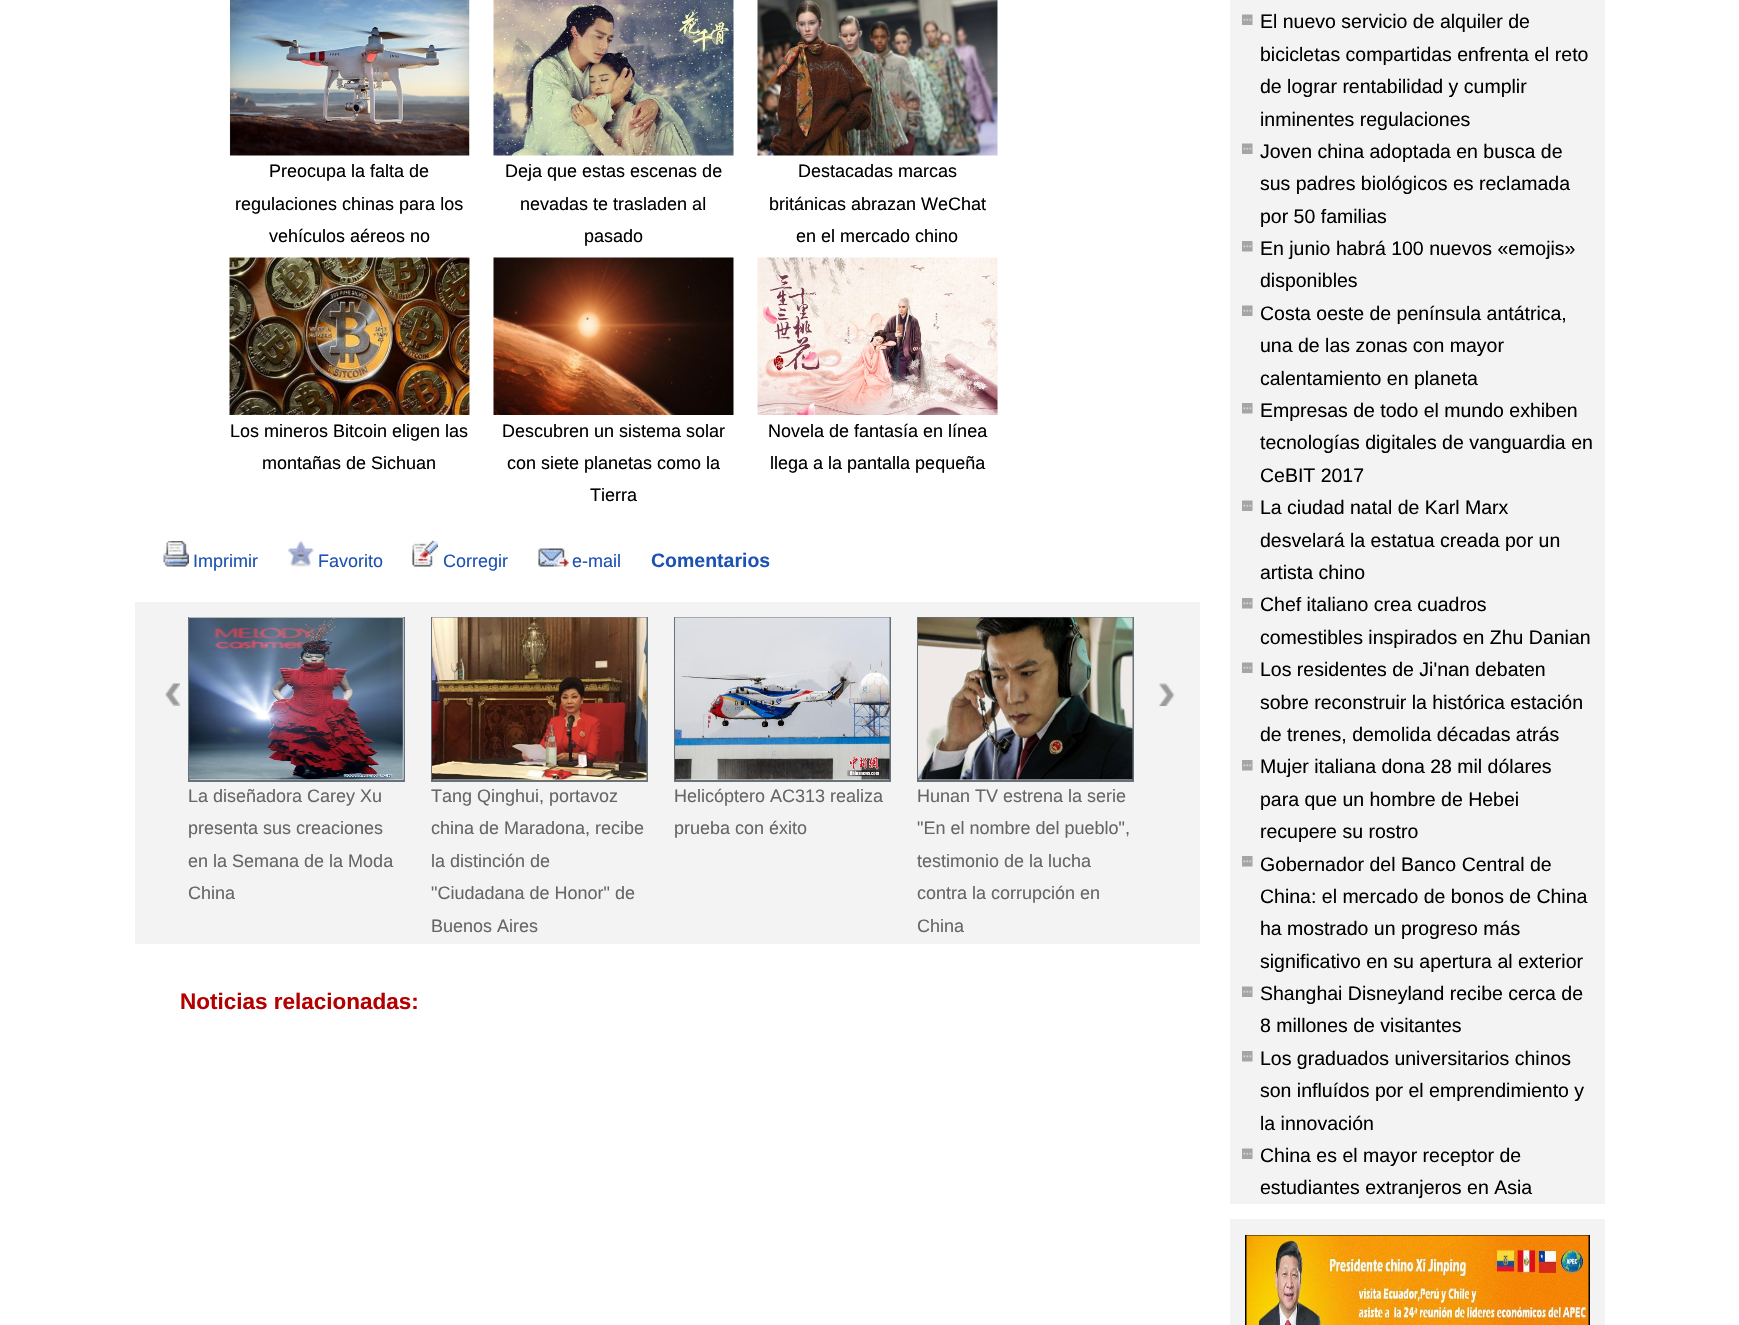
void draw(SkCanvas* canvas) {
    SkPaint paint;
    paint.setAntiAlias(true);
    canvas->clear(0xFFFFFFFF);
    paint.setColor(0xFFF3F3F3);
    canvas->drawRect(SkRect::MakeXYWH(1230, 0, 375, 1325), paint);
    canvas->drawImageRect(SkImages::DeferredFromEncodedData(SkData::MakeFromFileName("img1.png")), SkRect::MakeXYWH(229, 0, 241, 156), SkSamplingOptions());
    SkFont font1(fontMgr->matchFamilyStyle("Liberation Sans", SkFontStyle::Normal()), 18);
    font1.setSubpixel(true);
    paint.setColor(0xFF000000);
    canvas->drawString("Preocupa la falta de", 269, 177, font1, paint);
    canvas->drawString("regulaciones chinas para los", 235, 210, font1, paint);
    canvas->drawString("vehículos aéreos no", 269, 242, font1, paint);
    canvas->drawImageRect(SkImages::DeferredFromEncodedData(SkData::MakeFromFileName("img2.png")), SkRect::MakeXYWH(493, 0, 241, 156), SkSamplingOptions());
    canvas->drawString("Deja que estas escenas de", 505, 177, font1, paint);
    canvas->drawString("nevadas te trasladen al", 520, 210, font1, paint);
    canvas->drawString("pasado", 584, 242, font1, paint);
    canvas->drawImageRect(SkImages::DeferredFromEncodedData(SkData::MakeFromFileName("img3.png")), SkRect::MakeXYWH(757, 0, 241, 156), SkSamplingOptions());
    canvas->drawString("Destacadas marcas", 798, 177, font1, paint);
    canvas->drawString("británicas abrazan WeChat", 769, 210, font1, paint);
    canvas->drawString("en el mercado chino", 796, 242, font1, paint);
    canvas->drawImageRect(SkImages::DeferredFromEncodedData(SkData::MakeFromFileName("img4.png")), SkRect::MakeXYWH(229, 257, 241, 158), SkSamplingOptions());
    canvas->drawString("Los mineros Bitcoin eligen las", 230, 437, font1, paint);
    canvas->drawString("montañas de Sichuan", 262, 469, font1, paint);
    canvas->drawImageRect(SkImages::DeferredFromEncodedData(SkData::MakeFromFileName("img5.png")), SkRect::MakeXYWH(493, 257, 241, 158), SkSamplingOptions());
    canvas->drawString("Descubren un sistema solar", 502, 437, font1, paint);
    canvas->drawString("con siete planetas como la", 507, 469, font1, paint);
    canvas->drawString("Tierra", 590, 501, font1, paint);
    canvas->drawImageRect(SkImages::DeferredFromEncodedData(SkData::MakeFromFileName("img6.png")), SkRect::MakeXYWH(757, 257, 241, 158), SkSamplingOptions());
    canvas->drawString("Novela de fantasía en línea", 768, 437, font1, paint);
    canvas->drawString("llega a la pantalla pequeña", 770, 469, font1, paint);
    canvas->drawImageRect(SkImages::DeferredFromEncodedData(SkData::MakeFromFileName("img7.png")), SkRect::MakeXYWH(163, 541, 26, 26), SkSamplingOptions());
    paint.setColor(0xFF1D51B4);
    canvas->drawString("Imprimir", 193, 567, font1, paint);
    canvas->drawImageRect(SkImages::DeferredFromEncodedData(SkData::MakeFromFileName("img8.png")), SkRect::MakeXYWH(288, 541, 26, 26), SkSamplingOptions());
    canvas->drawString("Favorito", 318, 567, font1, paint);
    canvas->drawImageRect(SkImages::DeferredFromEncodedData(SkData::MakeFromFileName("img9.png")), SkRect::MakeXYWH(412, 540, 26, 27), SkSamplingOptions());
    canvas->drawString("Corregir", 443, 567, font1, paint);
    canvas->drawImageRect(SkImages::DeferredFromEncodedData(SkData::MakeFromFileName("img10.png")), SkRect::MakeXYWH(538, 548, 31, 19), SkSamplingOptions());
    canvas->drawString("e-mail", 572, 567, font1, paint);
    SkFont font2(fontMgr->matchFamilyStyle("Liberation Sans", SkFontStyle::Bold()), 19.5f);
    font2.setSubpixel(true);
    canvas->drawString("Comentarios", 651, 567, font2, paint);
    paint.setColor(0xFFF3F3F3);
    canvas->drawRect(SkRect::MakeXYWH(135, 602, 1065, 342), paint);
    canvas->drawImageRect(SkImages::DeferredFromEncodedData(SkData::MakeFromFileName("img11.png")), SkRect::MakeXYWH(165, 683, 15, 23), SkSamplingOptions());
    canvas->drawImageRect(SkImages::DeferredFromEncodedData(SkData::MakeFromFileName("img12.png")), SkRect::MakeXYWH(1159, 683, 16, 23), SkSamplingOptions());
    paint.setStyle(SkPaint::kStroke_Style);
    paint.setStrokeWidth(2);
    paint.setColor(0xFF687379);
    canvas->drawRect(SkRect::MakeXYWH(189, 618, 215, 163), paint);
    canvas->drawImageRect(SkImages::DeferredFromEncodedData(SkData::MakeFromFileName("img13.png")), SkRect::MakeXYWH(189, 617, 215, 163), SkSamplingOptions());
    paint.setStyle(SkPaint::kFill_Style);
    paint.setColor(0xFF666666);
    canvas->drawString("La diseñadora Carey Xu", 188, 802, font1, paint);
    canvas->drawString("presenta sus creaciones", 188, 834, font1, paint);
    canvas->drawString("en la Semana de la Moda", 188, 867, font1, paint);
    canvas->drawString("China", 188, 899, font1, paint);
    paint.setStyle(SkPaint::kStroke_Style);
    paint.setColor(0xFF687379);
    canvas->drawRect(SkRect::MakeXYWH(432, 618, 215, 163), paint);
    canvas->drawImageRect(SkImages::DeferredFromEncodedData(SkData::MakeFromFileName("img14.png")), SkRect::MakeXYWH(432, 617, 215, 163), SkSamplingOptions());
    paint.setStyle(SkPaint::kFill_Style);
    paint.setColor(0xFF666666);
    canvas->drawString("Tang Qinghui, portavoz", 431, 802, font1, paint);
    canvas->drawString("china de Maradona, recibe", 431, 834, font1, paint);
    canvas->drawString("la distinción de", 431, 867, font1, paint);
    canvas->drawString("\"Ciudadana de Honor\" de", 431, 899, font1, paint);
    canvas->drawString("Buenos Aires", 431, 932, font1, paint);
    paint.setStyle(SkPaint::kStroke_Style);
    paint.setColor(0xFF687379);
    canvas->drawRect(SkRect::MakeXYWH(675, 618, 215, 163), paint);
    canvas->drawImageRect(SkImages::DeferredFromEncodedData(SkData::MakeFromFileName("img15.png")), SkRect::MakeXYWH(675, 617, 215, 163), SkSamplingOptions());
    paint.setStyle(SkPaint::kFill_Style);
    paint.setColor(0xFF666666);
    canvas->drawString("Helicóptero AC313 realiza", 674, 802, font1, paint);
    canvas->drawString("prueba con éxito", 674, 834, font1, paint);
    paint.setStyle(SkPaint::kStroke_Style);
    paint.setColor(0xFF687379);
    canvas->drawRect(SkRect::MakeXYWH(918, 618, 215, 163), paint);
    canvas->drawImageRect(SkImages::DeferredFromEncodedData(SkData::MakeFromFileName("img16.png")), SkRect::MakeXYWH(918, 617, 215, 163), SkSamplingOptions());
    paint.setStyle(SkPaint::kFill_Style);
    paint.setColor(0xFF666666);
    canvas->drawString("Hunan TV estrena la serie", 917, 802, font1, paint);
    canvas->drawString("\"En el nombre del pueblo\",", 917, 834, font1, paint);
    canvas->drawString("testimonio de la lucha", 917, 867, font1, paint);
    canvas->drawString("contra la corrupción en", 917, 899, font1, paint);
    canvas->drawString("China", 917, 932, font1, paint);
    SkFont font3(fontMgr->matchFamilyStyle("Liberation Sans", SkFontStyle::Bold()), 22.5f);
    font3.setSubpixel(true);
    paint.setColor(0xFFB40000);
    canvas->drawString("Noticias relacionadas:", 180, 1009, font3, paint);
    canvas->drawImageRect(SkImages::DeferredFromEncodedData(SkData::MakeFromFileName("img17.png")), SkRect::MakeXYWH(1242, 14, 11, 11), SkSamplingOptions());
    SkFont font4(fontMgr->matchFamilyStyle("Liberation Sans", SkFontStyle::Normal()), 19.5f);
    font4.setSubpixel(true);
    paint.setColor(0xFF000000);
    canvas->drawString("El nuevo servicio de alquiler de", 1260, 28, font4, paint);
    canvas->drawString("bicicletas compartidas enfrenta el reto", 1260, 61, font4, paint);
    canvas->drawString("de lograr rentabilidad y cumplir", 1260, 93, font4, paint);
    canvas->drawString("inminentes regulaciones", 1260, 126, font4, paint);
    canvas->drawImageRect(SkImages::DeferredFromEncodedData(SkData::MakeFromFileName("img17.png")), SkRect::MakeXYWH(1242, 143, 11, 11), SkSamplingOptions());
    canvas->drawString("Joven china adoptada en busca de", 1260, 158, font4, paint);
    canvas->drawString("sus padres biológicos es reclamada", 1260, 190, font4, paint);
    canvas->drawString("por 50 familias", 1260, 223, font4, paint);
    canvas->drawImageRect(SkImages::DeferredFromEncodedData(SkData::MakeFromFileName("img18.png")), SkRect::MakeXYWH(1242, 241, 11, 11), SkSamplingOptions());
    canvas->drawString("En junio habrá 100 nuevos «emojis»", 1260, 255, font4, paint);
    canvas->drawString("disponibles", 1260, 287, font4, paint);
    canvas->drawImageRect(SkImages::DeferredFromEncodedData(SkData::MakeFromFileName("img17.png")), SkRect::MakeXYWH(1242, 305, 11, 11), SkSamplingOptions());
    canvas->drawString("Costa oeste de península antátrica,", 1260, 320, font4, paint);
    canvas->drawString("una de las zonas con mayor", 1260, 352, font4, paint);
    canvas->drawString("calentamiento en planeta", 1260, 385, font4, paint);
    canvas->drawImageRect(SkImages::DeferredFromEncodedData(SkData::MakeFromFileName("img18.png")), SkRect::MakeXYWH(1242, 403, 11, 11), SkSamplingOptions());
    canvas->drawString("Empresas de todo el mundo exhiben", 1260, 417, font4, paint);
    canvas->drawString("tecnologías digitales de vanguardia en", 1260, 449, font4, paint);
    canvas->drawString("CeBIT 2017", 1260, 482, font4, paint);
    canvas->drawImageRect(SkImages::DeferredFromEncodedData(SkData::MakeFromFileName("img17.png")), SkRect::MakeXYWH(1242, 500, 11, 11), SkSamplingOptions());
    canvas->drawString("La ciudad natal de Karl Marx", 1260, 514, font4, paint);
    canvas->drawString("desvelará la estatua creada por un", 1260, 547, font4, paint);
    canvas->drawString("artista chino", 1260, 579, font4, paint);
    canvas->drawImageRect(SkImages::DeferredFromEncodedData(SkData::MakeFromFileName("img18.png")), SkRect::MakeXYWH(1242, 598, 11, 11), SkSamplingOptions());
    canvas->drawString("Chef italiano crea cuadros", 1260, 611, font4, paint);
    canvas->drawString("comestibles inspirados en Zhu Danian", 1260, 644, font4, paint);
    canvas->drawImageRect(SkImages::DeferredFromEncodedData(SkData::MakeFromFileName("img17.png")), SkRect::MakeXYWH(1242, 662, 11, 11), SkSamplingOptions());
    canvas->drawString("Los residentes de Ji'nan debaten", 1260, 676, font4, paint);
    canvas->drawString("sobre reconstruir la histórica estación", 1260, 709, font4, paint);
    canvas->drawString("de trenes, demolida décadas atrás", 1260, 741, font4, paint);
    canvas->drawImageRect(SkImages::DeferredFromEncodedData(SkData::MakeFromFileName("img18.png")), SkRect::MakeXYWH(1242, 760, 11, 11), SkSamplingOptions());
    canvas->drawString("Mujer italiana dona 28 mil dólares", 1260, 773, font4, paint);
    canvas->drawString("para que un hombre de Hebei", 1260, 806, font4, paint);
    canvas->drawString("recupere su rostro", 1260, 838, font4, paint);
    canvas->drawImageRect(SkImages::DeferredFromEncodedData(SkData::MakeFromFileName("img18.png")), SkRect::MakeXYWH(1242, 856, 11, 11), SkSamplingOptions());
    canvas->drawString("Gobernador del Banco Central de", 1260, 871, font4, paint);
    canvas->drawString("China: el mercado de bonos de China", 1260, 903, font4, paint);
    canvas->drawString("ha mostrado un progreso más", 1260, 935, font4, paint);
    canvas->drawString("significativo en su apertura al exterior", 1260, 968, font4, paint);
    canvas->drawImageRect(SkImages::DeferredFromEncodedData(SkData::MakeFromFileName("img17.png")), SkRect::MakeXYWH(1242, 986, 11, 11), SkSamplingOptions());
    canvas->drawString("Shanghai Disneyland recibe cerca de", 1260, 1000, font4, paint);
    canvas->drawString("8 millones de visitantes", 1260, 1032, font4, paint);
    canvas->drawImageRect(SkImages::DeferredFromEncodedData(SkData::MakeFromFileName("img18.png")), SkRect::MakeXYWH(1242, 1051, 11, 11), SkSamplingOptions());
    canvas->drawString("Los graduados universitarios chinos", 1260, 1065, font4, paint);
    canvas->drawString("son influídos por el emprendimiento y", 1260, 1097, font4, paint);
    canvas->drawString("la innovación", 1260, 1130, font4, paint);
    canvas->drawImageRect(SkImages::DeferredFromEncodedData(SkData::MakeFromFileName("img17.png")), SkRect::MakeXYWH(1242, 1148, 11, 11), SkSamplingOptions());
    canvas->drawString("China es el mayor receptor de", 1260, 1162, font4, paint);
    canvas->drawString("estudiantes extranjeros en Asia", 1260, 1194, font4, paint);
    paint.setColor(0xFFFFFFFF);
    canvas->drawRect(SkRect::MakeXYWH(1230, 1204, 375, 15), paint);
    paint.setStyle(SkPaint::kStroke_Style);
    paint.setColor(0xFF050505);
    canvas->drawRect(SkRect::MakeXYWH(1246, 1236, 343, 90), paint);
    canvas->drawImageRect(SkImages::DeferredFromEncodedData(SkData::MakeFromFileName("img19.png")), SkRect::MakeXYWH(1246, 1235, 343, 90), SkSamplingOptions());
}
